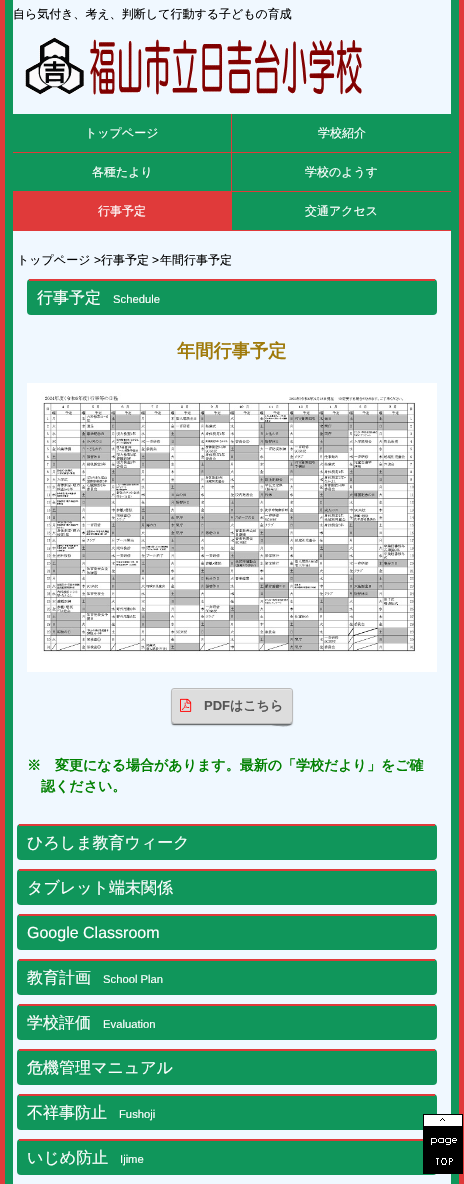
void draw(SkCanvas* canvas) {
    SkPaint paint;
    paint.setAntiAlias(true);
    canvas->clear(0xFFF0F8FF);
    paint.setColor(0xFFE03A3A);
    canvas->drawRect(SkRect::MakeXYWH(459, 0, 5, 1184), paint);
    canvas->drawRect(SkRect::MakeXYWH(0, 0, 5, 1184), paint);
    paint.setColor(0xFF10965B);
    canvas->drawRect(SkRect::MakeXYWH(451, 0, 8, 1184), paint);
    canvas->drawRect(SkRect::MakeXYWH(5, 0, 8, 1184), paint);
    SkFont font1(fontMgr->matchFamilyStyle("WenQuanYi Zen Hei", SkFontStyle(500, SkFontStyle::kNormal_Width, SkFontStyle::kUpright_Slant)), 12);
    font1.setSubpixel(true);
    paint.setColor(0xFF000000);
    canvas->drawString("自ら気付き、考え、判断して行動する子どもの育成", 13, 18, font1, paint);
    canvas->drawImageRect(SkImages::DeferredFromEncodedData(SkData::MakeFromFileName("img1.png")), SkRect::MakeXYWH(25, 37, 337, 58), SkSamplingOptions());
    paint.setColor(0xFF10965B);
    canvas->drawRect(SkRect::MakeXYWH(13, 114, 438, 116), paint);
    paint.setColor(0xFFE03A3A);
    canvas->drawRect(SkRect::MakeXYWH(231, 114, 1, 117), paint);
    canvas->drawRect(SkRect::MakeXYWH(13, 152, 438, 1), paint);
    paint.setColor(0xFFFFFFFF);
    canvas->drawString("トップページ", 85, 137, font1, paint);
    canvas->drawString("学校紹介", 318, 137, font1, paint);
    paint.setColor(0xFFE03A3A);
    canvas->drawRect(SkRect::MakeXYWH(13, 191, 438, 1), paint);
    paint.setColor(0xFFFFFFFF);
    canvas->drawString("各種たより", 92, 176, font1, paint);
    canvas->drawString("学校のようす", 305, 176, font1, paint);
    paint.setColor(0xFFE03A3A);
    canvas->drawRect(SkRect::MakeXYWH(13, 230, 438, 1), paint);
    canvas->drawRect(SkRect::MakeXYWH(13, 192, 218, 38), paint);
    paint.setColor(0xFFFFFFFF);
    canvas->drawString("行事予定", 98, 215, font1, paint);
    canvas->drawString("交通アクセス", 305, 215, font1, paint);
    paint.setColor(0xFF000000);
    canvas->drawString("トップページ", 17, 264, font1, paint);
    SkFont font2(fontMgr->matchFamilyStyle("Liberation Sans", SkFontStyle::Normal()), 12);
    font2.setSubpixel(true);
    canvas->drawString(">", 94, 264, font2, paint);
    canvas->drawString("行事予定", 101, 264, font1, paint);
    canvas->drawString(">", 152, 264, font2, paint);
    canvas->drawString("年間行事予定", 160, 264, font1, paint);
    paint.setColor(0xFF10965B);
    canvas->drawRoundRect(SkRect::MakeXYWH(27, 279, 410, 36), 4, 4, paint);
    paint.setColor(0xFFE03A3A);
    canvas->drawRect(SkRect::MakeXYWH(29, 279, 406, 2), paint);
    SkFont font3(fontMgr->matchFamilyStyle("WenQuanYi Zen Hei", SkFontStyle(500, SkFontStyle::kNormal_Width, SkFontStyle::kUpright_Slant)), 16);
    font3.setSubpixel(true);
    paint.setColor(0xFFFFFFFF);
    canvas->drawString("行事予定", 37, 303, font3, paint);
    SkFont font4(fontMgr->matchFamilyStyle("Liberation Sans", SkFontStyle::Normal()), 11.25f);
    font4.setSubpixel(true);
    canvas->drawString("Schedule", 113, 303, font4, paint);
    SkFont font5(fontMgr->matchFamilyStyle("WenQuanYi Zen Hei", SkFontStyle::Bold()), 18.25f);
    font5.setSubpixel(true);
    paint.setColor(0xFF9F7A0B);
    canvas->drawString("年間行事予定", 177, 357, font5, paint);
    canvas->drawImageRect(SkImages::DeferredFromEncodedData(SkData::MakeFromFileName("img2.png")), SkRect::MakeXYWH(27, 383, 410, 289), SkSamplingOptions());
    paint.setColor(0x80000000);
    paint.setMaskFilter(SkMaskFilter::MakeBlur(kNormal_SkBlurStyle, 1));
    canvas->drawRoundRect(SkRect::MakeXYWH(172, 691, 120, 34), 2, 2, paint);
    paint.setMaskFilter(nullptr);
    paint.setColor(0x4D000000);
    canvas->drawPath(SkPathBuilder().moveTo(171, 721).cubicTo(171, 723, 172, 725, 174, 725).lineTo(271, 725).cubicTo(272, 725, 293, 730, 293, 721).cubicTo(293, 723, 292, 724, 290, 724).lineTo(174, 724).cubicTo(172, 724, 171, 723, 171, 721).close().detach(), paint);
    paint.setColor(0xFFDDDDDD);
    canvas->drawRoundRect(SkRect::MakeXYWH(172, 689, 120, 34), 2, 2, paint);
    paint.setColor(0x4DFFFFFF);
    canvas->drawPath(SkPathBuilder().moveTo(174, 690).lineTo(290, 690).cubicTo(291, 690, 292, 691, 292, 692).cubicTo(292, 691, 292, 690, 291, 689).lineTo(193, 689).cubicTo(187, 689, 172, 685, 172, 692).cubicTo(172, 691, 173, 690, 174, 690).close().detach(), paint);
    paint.setStyle(SkPaint::kStroke_Style);
    paint.setStrokeWidth(1);
    paint.setColor(0xFFBBBBBB);
    canvas->drawRoundRect(SkRect::MakeXYWH(171.5f, 688.5f, 121, 35), 2.5f, 2.5f, paint);
    canvas->drawImageRect(SkImages::DeferredFromEncodedData(SkData::MakeFromFileName("img3.png")), SkRect::MakeXYWH(180, 698, 12, 14), SkSamplingOptions());
    SkFont font6(fontMgr->matchFamilyStyle("Liberation Sans", SkFontStyle::Bold()), 13);
    font6.setSubpixel(true);
    paint.setStyle(SkPaint::kFill_Style);
    paint.setColor(0xFF555555);
    canvas->drawString("PDF", 204, 710, font6, paint);
    SkFont font7(fontMgr->matchFamilyStyle("WenQuanYi Zen Hei", SkFontStyle::Bold()), 13);
    font7.setSubpixel(true);
    canvas->drawString("はこちら", 230, 710, font7, paint);
    SkFont font8(fontMgr->matchFamilyStyle("WenQuanYi Zen Hei", SkFontStyle::Bold()), 14);
    font8.setSubpixel(true);
    paint.setColor(0xFF008000);
    canvas->drawString("※　変更になる場合があります。最新の「学校だより」をご確", 27, 770, font8, paint);
    canvas->drawString("認ください。", 41, 791, font8, paint);
    paint.setColor(0xFF10965B);
    canvas->drawRoundRect(SkRect::MakeXYWH(17, 824, 420, 36), 4, 4, paint);
    paint.setColor(0xFFE03A3A);
    canvas->drawRect(SkRect::MakeXYWH(19, 824, 416, 2), paint);
    paint.setColor(0xFFFFFFFF);
    canvas->drawString("ひろしま教育ウィーク", 27, 848, font3, paint);
    paint.setColor(0xFF10965B);
    canvas->drawRoundRect(SkRect::MakeXYWH(17, 869, 420, 36), 4, 4, paint);
    paint.setColor(0xFFE03A3A);
    canvas->drawRect(SkRect::MakeXYWH(19, 869, 416, 2), paint);
    paint.setColor(0xFFFFFFFF);
    canvas->drawString("タブレット端末関係", 27, 893, font3, paint);
    paint.setColor(0xFF10965B);
    canvas->drawRoundRect(SkRect::MakeXYWH(17, 914, 420, 36), 4, 4, paint);
    paint.setColor(0xFFE03A3A);
    canvas->drawRect(SkRect::MakeXYWH(19, 914, 416, 2), paint);
    SkFont font9(fontMgr->matchFamilyStyle("Liberation Sans", SkFontStyle::Normal()), 16);
    font9.setSubpixel(true);
    paint.setColor(0xFFFFFFFF);
    canvas->drawString("Google Classroom", 27, 938, font9, paint);
    paint.setColor(0xFF10965B);
    canvas->drawRoundRect(SkRect::MakeXYWH(17, 959, 420, 36), 4, 4, paint);
    paint.setColor(0xFFE03A3A);
    canvas->drawRect(SkRect::MakeXYWH(19, 959, 416, 2), paint);
    paint.setColor(0xFFFFFFFF);
    canvas->drawString("教育計画", 27, 983, font3, paint);
    canvas->drawString("School Plan", 103, 983, font4, paint);
    paint.setColor(0xFF10965B);
    canvas->drawRoundRect(SkRect::MakeXYWH(17, 1004, 420, 36), 4, 4, paint);
    paint.setColor(0xFFE03A3A);
    canvas->drawRect(SkRect::MakeXYWH(19, 1004, 416, 2), paint);
    paint.setColor(0xFFFFFFFF);
    canvas->drawString("学校評価", 27, 1028, font3, paint);
    canvas->drawString("Evaluation", 103, 1028, font4, paint);
    paint.setColor(0xFF10965B);
    canvas->drawRoundRect(SkRect::MakeXYWH(17, 1049, 420, 36), 4, 4, paint);
    paint.setColor(0xFFE03A3A);
    canvas->drawRect(SkRect::MakeXYWH(19, 1049, 416, 2), paint);
    paint.setColor(0xFFFFFFFF);
    canvas->drawString("危機管理マニュアル", 27, 1073, font3, paint);
    paint.setColor(0xFF10965B);
    canvas->drawRoundRect(SkRect::MakeXYWH(17, 1094, 420, 36), 4, 4, paint);
    paint.setColor(0xFFE03A3A);
    canvas->drawRect(SkRect::MakeXYWH(19, 1094, 416, 2), paint);
    paint.setColor(0xFFFFFFFF);
    canvas->drawString("不祥事防止", 27, 1118, font3, paint);
    canvas->drawString("Fushoji", 119, 1118, font4, paint);
    paint.setColor(0xFF10965B);
    canvas->drawRoundRect(SkRect::MakeXYWH(17, 1139, 420, 36), 4, 4, paint);
    paint.setColor(0xFFE03A3A);
    canvas->drawRect(SkRect::MakeXYWH(19, 1139, 404, 2), paint);
    paint.setColor(0xFFFFFFFF);
    canvas->drawString("いじめ防止", 27, 1163, font3, paint);
    canvas->drawString("Ijime", 120, 1163, font4, paint);
    canvas->drawImageRect(SkImages::DeferredFromEncodedData(SkData::MakeFromFileName("img4.png")), SkRect::MakeXYWH(423, 1114, 40, 60), SkSamplingOptions());
}
